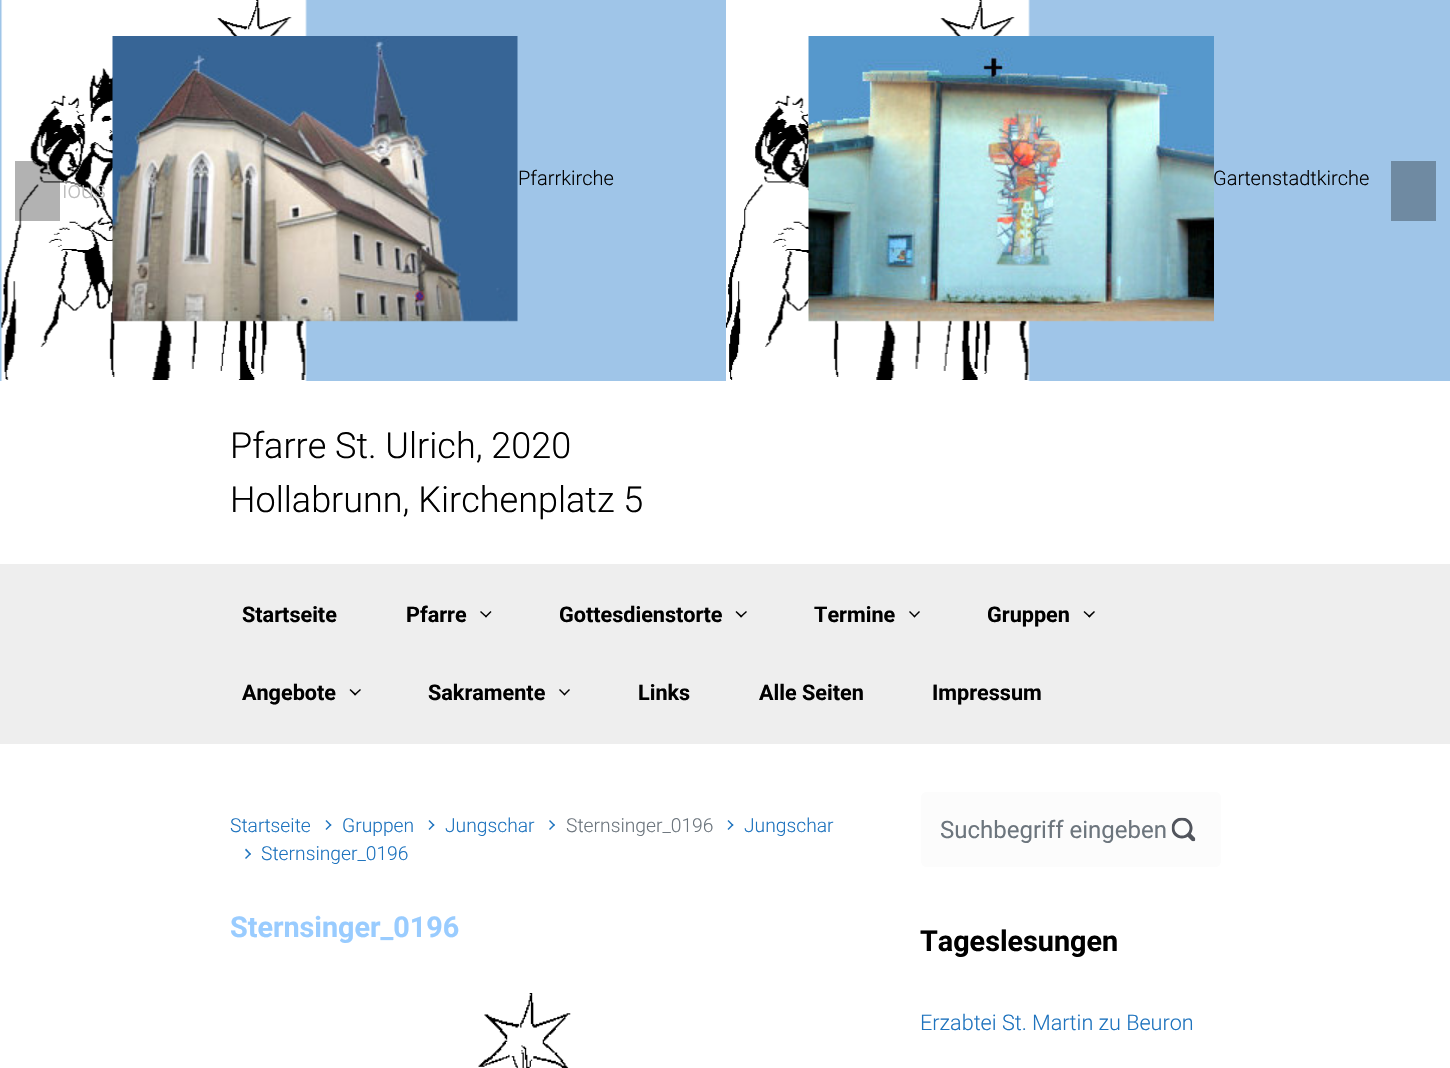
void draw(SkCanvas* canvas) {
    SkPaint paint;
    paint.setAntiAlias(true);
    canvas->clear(0xFFFFFFFF);
    paint.setColor(0xFF9FC5E8);
    canvas->drawRect(SkRect::MakeXYWH(0, 0, 1450, 381), paint);
    canvas->drawImageRect(SkImages::DeferredFromEncodedData(SkData::MakeFromFileName("img1.png")), SkRect::MakeXYWH(1, 0, 306, 381), SkSamplingOptions());
    canvas->drawImageRect(SkImages::DeferredFromEncodedData(SkData::MakeFromFileName("img2.png")), SkRect::MakeXYWH(112, 36, 406, 286), SkSamplingOptions());
    SkFont font1(fontMgr->matchFamilyStyle("Roboto", SkFontStyle(300, SkFontStyle::kNormal_Width, SkFontStyle::kUpright_Slant)), 20);
    font1.setSubpixel(true);
    paint.setColor(0xFF000000);
    canvas->drawString("Pfarrkirche", 518, 185, font1, paint);
    canvas->drawImageRect(SkImages::DeferredFromEncodedData(SkData::MakeFromFileName("img3.png")), SkRect::MakeXYWH(726, 0, 304, 381), SkSamplingOptions());
    canvas->drawImageRect(SkImages::DeferredFromEncodedData(SkData::MakeFromFileName("img4.png")), SkRect::MakeXYWH(808, 36, 406, 286), SkSamplingOptions());
    canvas->drawString("Gartenstadtkirche", 1213, 185, font1, paint);
    paint.setColor(0x4D000000);
    canvas->drawRect(SkRect::MakeXYWH(15, 161, 45, 60), paint);
    SkFont font2(fontMgr->matchFamilyStyle("Roboto", SkFontStyle(300, SkFontStyle::kNormal_Width, SkFontStyle::kUpright_Slant)), 24);
    font2.setSubpixel(true);
    paint.setColor(0xFFBDBDBD);
    canvas->drawString("ious", 62, 198, font2, paint);
    paint.setColor(0xFF6F8AA2);
    canvas->drawRect(SkRect::MakeXYWH(1391, 161, 45, 60), paint);
    SkFont font3(fontMgr->matchFamilyStyle("Roboto", SkFontStyle(300, SkFontStyle::kNormal_Width, SkFontStyle::kUpright_Slant)), 36);
    font3.setSubpixel(true);
    paint.setColor(0xFF000000);
    canvas->drawString("Pfarre St. Ulrich, 2020", 230, 458, font3, paint);
    canvas->drawString("Hollabrunn, Kirchenplatz 5", 230, 512, font3, paint);
    paint.setColor(0xFFEEEEEE);
    canvas->drawRect(SkRect::MakeXYWH(0, 564, 1450, 180), paint);
    SkFont font4(fontMgr->matchFamilyStyle("Roboto", SkFontStyle::Bold()), 21.6f);
    font4.setSubpixel(true);
    paint.setColor(0xFF000000);
    canvas->drawString("Startseite", 242, 622, font4, paint);
    canvas->drawString("Pfarre", 406, 622, font4, paint);
    canvas->drawPath(SkPathBuilder().moveTo(490.5f, 611).lineTo(491.5f, 612).lineTo(486, 617.5f).lineTo(485, 616.5f).close().detach(), paint);
    canvas->drawPath(SkPathBuilder().moveTo(481, 611).lineTo(487, 616.5f).lineTo(486, 617.5f).lineTo(480, 612).close().detach(), paint);
    canvas->drawString("Gottesdienstorte", 559, 622, font4, paint);
    canvas->drawPath(SkPathBuilder().moveTo(746, 611).lineTo(747, 612).lineTo(741, 617.5f).lineTo(740, 616.5f).close().detach(), paint);
    canvas->drawPath(SkPathBuilder().moveTo(736.5f, 611).lineTo(742.5f, 616.5f).lineTo(741, 617.5f).lineTo(735.5f, 612).close().detach(), paint);
    canvas->drawString("Termine", 814, 622, font4, paint);
    canvas->drawPath(SkPathBuilder().moveTo(919, 611).lineTo(920, 612).lineTo(914.5f, 617.5f).lineTo(913.5f, 616.5f).close().detach(), paint);
    canvas->drawPath(SkPathBuilder().moveTo(910, 611).lineTo(915.5f, 616.5f).lineTo(914.5f, 617.5f).lineTo(909, 612).close().detach(), paint);
    canvas->drawString("Gruppen", 987, 622, font4, paint);
    canvas->drawPath(SkPathBuilder().moveTo(1094, 611).lineTo(1095, 612).lineTo(1089.5f, 617.5f).lineTo(1088, 616.5f).close().detach(), paint);
    canvas->drawPath(SkPathBuilder().moveTo(1084.5f, 611).lineTo(1090.5f, 616.5f).lineTo(1089.5f, 617.5f).lineTo(1083.5f, 612).close().detach(), paint);
    canvas->drawString("Angebote", 242, 700, font4, paint);
    canvas->drawPath(SkPathBuilder().moveTo(360, 689).lineTo(361, 690).lineTo(355, 695.5f).lineTo(354, 694.5f).close().detach(), paint);
    canvas->drawPath(SkPathBuilder().moveTo(350.5f, 689).lineTo(356.5f, 694.5f).lineTo(355, 695.5f).lineTo(349.5f, 690).close().detach(), paint);
    canvas->drawString("Sakramente", 428, 700, font4, paint);
    canvas->drawPath(SkPathBuilder().moveTo(569, 689).lineTo(570, 690).lineTo(564.5f, 695.5f).lineTo(563.5f, 694.5f).close().detach(), paint);
    canvas->drawPath(SkPathBuilder().moveTo(560, 689).lineTo(565.5f, 694.5f).lineTo(564.5f, 695.5f).lineTo(559, 690).close().detach(), paint);
    canvas->drawString("Links", 638, 700, font4, paint);
    canvas->drawString("Alle Seiten", 759, 700, font4, paint);
    canvas->drawString("Impressum", 932, 700, font4, paint);
    SkFont font5(fontMgr->matchFamilyStyle("Roboto", SkFontStyle(300, SkFontStyle::kNormal_Width, SkFontStyle::kUpright_Slant)), 19.25f);
    font5.setSubpixel(true);
    paint.setColor(0xFF1E73BE);
    canvas->drawString("Startseite", 230, 832, font5, paint);
    canvas->drawPath(SkPathBuilder().moveTo(325.5f, 821).lineTo(326.5f, 820).lineTo(331.5f, 825).lineTo(330.5f, 826).close().detach(), paint);
    canvas->drawPath(SkPathBuilder().moveTo(325.5f, 829).lineTo(330.5f, 824).lineTo(331.5f, 825).lineTo(326.5f, 830).close().detach(), paint);
    canvas->drawString("Gruppen", 342, 832, font5, paint);
    canvas->drawPath(SkPathBuilder().moveTo(428.5f, 821).lineTo(429.5f, 820).lineTo(434.5f, 825).lineTo(433.5f, 826).close().detach(), paint);
    canvas->drawPath(SkPathBuilder().moveTo(428.5f, 829).lineTo(433.5f, 824).lineTo(434.5f, 825).lineTo(429.5f, 830).close().detach(), paint);
    canvas->drawString("Jungschar", 445, 832, font5, paint);
    canvas->drawPath(SkPathBuilder().moveTo(549, 821).lineTo(550, 820).lineTo(555, 825).lineTo(554, 826).close().detach(), paint);
    canvas->drawPath(SkPathBuilder().moveTo(549, 829).lineTo(554, 824).lineTo(555, 825).lineTo(550, 830).close().detach(), paint);
    paint.setColor(0xFF6C757D);
    canvas->drawString("Sternsinger_0196", 566, 832, font5, paint);
    paint.setColor(0xFF1E73BE);
    canvas->drawPath(SkPathBuilder().moveTo(727.5f, 821).lineTo(728.5f, 820).lineTo(733.5f, 825).lineTo(732.5f, 826).close().detach(), paint);
    canvas->drawPath(SkPathBuilder().moveTo(727.5f, 829).lineTo(732.5f, 824).lineTo(733.5f, 825).lineTo(728.5f, 830).close().detach(), paint);
    canvas->drawString("Jungschar", 744, 832, font5, paint);
    canvas->drawPath(SkPathBuilder().moveTo(245, 850).lineTo(246, 848.5f).lineTo(251, 854).lineTo(250, 855).close().detach(), paint);
    canvas->drawPath(SkPathBuilder().moveTo(245, 858).lineTo(250, 853).lineTo(251, 854).lineTo(246, 859).close().detach(), paint);
    canvas->drawString("Sternsinger_0196", 261, 860, font5, paint);
    SkFont font6(fontMgr->matchFamilyStyle("Roboto", SkFontStyle::Bold()), 28.75f);
    font6.setSubpixel(true);
    paint.setColor(0xFF99CCFF);
    canvas->drawString("Sternsinger_0196", 230, 937, font6, paint);
    canvas->drawImageRect(SkImages::DeferredFromEncodedData(SkData::MakeFromFileName("img5.png")), SkRect::MakeXYWH(478, 993, 93, 75), SkSamplingOptions());
    paint.setColor(0xFFFCFCFC);
    canvas->drawRoundRect(SkRect::MakeXYWH(922, 793, 298, 73), 5, 5, paint);
    paint.setStyle(SkPaint::kStroke_Style);
    paint.setStrokeWidth(2);
    canvas->drawRoundRect(SkRect::MakeXYWH(922, 793, 298, 73), 5, 5, paint);
    SkFont font7(fontMgr->matchFamilyStyle("Roboto", SkFontStyle::Normal()), 24);
    font7.setSubpixel(true);
    paint.setStyle(SkPaint::kFill_Style);
    paint.setColor(0xFF6C757D);
    canvas->drawString("Suchbegriff eingeben", 940, 838, font7, paint);
    canvas->drawImageRect(SkImages::DeferredFromEncodedData(SkData::MakeFromFileName("img6.png")), SkRect::MakeXYWH(1171, 817, 25, 25), SkSamplingOptions());
    paint.setColor(0xFF000000);
    canvas->drawString("Tageslesungen", 920, 951, font6, paint);
    SkFont font8(fontMgr->matchFamilyStyle("Roboto", SkFontStyle(300, SkFontStyle::kNormal_Width, SkFontStyle::kUpright_Slant)), 21.6f);
    font8.setSubpixel(true);
    paint.setColor(0xFF1E73BE);
    canvas->drawString("Erzabtei St. Martin zu Beuron", 920, 1030, font8, paint);
}
